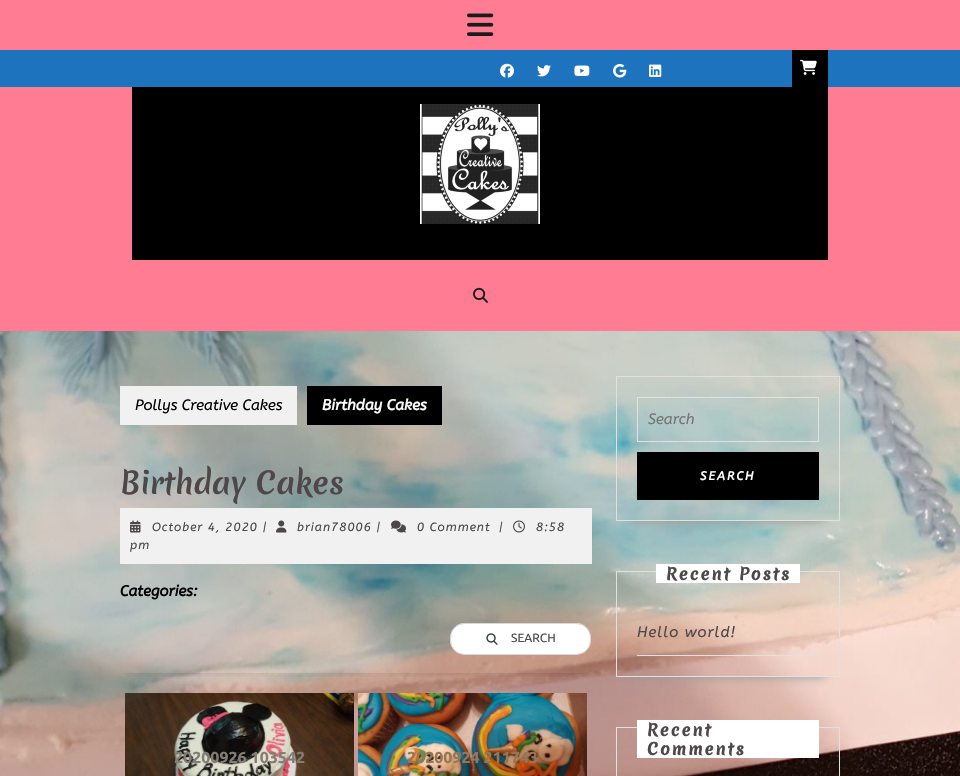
void draw(SkCanvas* canvas) {
    SkPaint paint;
    paint.setAntiAlias(true);
    auto spacedText = [&](const char* s, float x, float y, const SkFont& font, const SkPaint& ink, float letter, float word) {
        std::vector<SkGlyphID> glyphs(font.countText(s, strlen(s), SkTextEncoding::kUTF8));
        std::vector<float> xs(glyphs.size());
        font.textToGlyphs(s, strlen(s), SkTextEncoding::kUTF8, glyphs);
        font.getXPos(glyphs, xs, x);
        float extra = 0;
        for (size_t i = 0; i < glyphs.size(); i++) {
            xs[i] += extra;
            extra += letter + word * (glyphs[i] == font.unicharToGlyph(' '));
        }
        canvas->drawTextBlob(SkTextBlob::MakeFromPosHGlyphs(glyphs, xs, y, font), 0, 0, ink);
    };
    canvas->clear(0xFFFFFFFF);
    canvas->drawImageRect(SkImages::DeferredFromEncodedData(SkData::MakeFromFileName("img1.png")), SkRect::MakeXYWH(0, 331, 960, 445), SkSamplingOptions());
    paint.setColor(0xFFFF7C93);
    canvas->drawRect(SkRect::MakeXYWH(0, 0, 960, 50), paint);
    canvas->drawImageRect(SkImages::DeferredFromEncodedData(SkData::MakeFromFileName("img2.png")), SkRect::MakeXYWH(467, 13, 27, 23), SkSamplingOptions());
    paint.setColor(0xFF1E73BE);
    canvas->drawRect(SkRect::MakeXYWH(0, 50, 960, 37), paint);
    canvas->drawImageRect(SkImages::DeferredFromEncodedData(SkData::MakeFromFileName("img3.png")), SkRect::MakeXYWH(500, 63, 14, 15), SkSamplingOptions());
    canvas->drawImageRect(SkImages::DeferredFromEncodedData(SkData::MakeFromFileName("img4.png")), SkRect::MakeXYWH(537, 65, 14, 12), SkSamplingOptions());
    canvas->drawImageRect(SkImages::DeferredFromEncodedData(SkData::MakeFromFileName("img5.png")), SkRect::MakeXYWH(574, 65, 16, 11), SkSamplingOptions());
    canvas->drawImageRect(SkImages::DeferredFromEncodedData(SkData::MakeFromFileName("img6.png")), SkRect::MakeXYWH(613, 64, 14, 14), SkSamplingOptions());
    canvas->drawImageRect(SkImages::DeferredFromEncodedData(SkData::MakeFromFileName("img7.png")), SkRect::MakeXYWH(649, 64, 13, 13), SkSamplingOptions());
    paint.setColor(0xFF000000);
    canvas->drawRect(SkRect::MakeXYWH(792, 50, 36, 37), paint);
    canvas->drawImageRect(SkImages::DeferredFromEncodedData(SkData::MakeFromFileName("img8.png")), SkRect::MakeXYWH(800, 59, 17, 16), SkSamplingOptions());
    paint.setColor(0xFFFF7C93);
    canvas->drawRect(SkRect::MakeXYWH(0, 87, 960, 244), paint);
    paint.setColor(0xFF000000);
    canvas->drawRect(SkRect::MakeXYWH(132, 87, 696, 173), paint);
    canvas->drawImageRect(SkImages::DeferredFromEncodedData(SkData::MakeFromFileName("img9.png")), SkRect::MakeXYWH(420, 104, 120, 120), SkSamplingOptions());
    canvas->drawImageRect(SkImages::DeferredFromEncodedData(SkData::MakeFromFileName("img10.png")), SkRect::MakeXYWH(473, 287, 15, 16), SkSamplingOptions());
    paint.setColor(0xFFF1F1F1);
    canvas->drawRect(SkRect::MakeXYWH(120, 386, 177, 39), paint);
    SkFont font1(fontMgr->matchFamilyStyle("ABeeZee", SkFontStyle::Italic()), 15);
    font1.setSubpixel(true);
    paint.setColor(0xFF000000);
    canvas->drawString("Pollys Creative Cakes", 135, 410, font1, paint);
    canvas->drawRect(SkRect::MakeXYWH(307, 386, 135, 39), paint);
    SkFont font2(fontMgr->matchFamilyStyle("ABeeZee", SkFontStyle::BoldItalic()), 15);
    font2.setSubpixel(true);
    paint.setColor(0xFFFFFFFF);
    canvas->drawString("Birthday Cakes", 322, 410, font2, paint);
    SkFont font3(fontMgr->matchFamilyStyle("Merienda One", SkFontStyle::Normal()), 29.75f);
    font3.setSubpixel(true);
    paint.setColor(0xFF4D4749);
    canvas->drawString("Birthday Cakes", 120, 494, font3, paint);
    paint.setColor(0xFFF1F1F1);
    canvas->drawRect(SkRect::MakeXYWH(120, 508, 472, 56), paint);
    canvas->drawImageRect(SkImages::DeferredFromEncodedData(SkData::MakeFromFileName("img11.png")), SkRect::MakeXYWH(130, 520, 11, 13), SkSamplingOptions());
    SkFont font4(fontMgr->matchFamilyStyle("ABeeZee", SkFontStyle::Italic()), 12);
    font4.setSubpixel(true);
    paint.setColor(0xFF4D4749);
    spacedText("October 4, 2020 |", 152, 531, font4, paint, 1, 0);
    canvas->drawImageRect(SkImages::DeferredFromEncodedData(SkData::MakeFromFileName("img12.png")), SkRect::MakeXYWH(276, 520, 11, 13), SkSamplingOptions());
    spacedText("brian78006 |", 297, 531, font4, paint, 1, 0);
    canvas->drawImageRect(SkImages::DeferredFromEncodedData(SkData::MakeFromFileName("img13.png")), SkRect::MakeXYWH(391, 520, 15, 13), SkSamplingOptions());
    spacedText("0 Comment", 417, 531, font4, paint, 1, 0);
    spacedText("|", 499, 531, font4, paint, 1, 0);
    canvas->drawImageRect(SkImages::DeferredFromEncodedData(SkData::MakeFromFileName("img14.png")), SkRect::MakeXYWH(513, 520, 12, 13), SkSamplingOptions());
    spacedText("8:58", 536, 531, font4, paint, 1, 0);
    spacedText("pm", 130, 549, font4, paint, 1, 0);
    paint.setColor(0xFF000000);
    canvas->drawString("Categories:", 120, 596, font2, paint);
    canvas->save();
    canvas->clipRect(SkRect::MakeXYWH(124, 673, 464, 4));
    paint.setColor(0x29000000);
    paint.setMaskFilter(SkMaskFilter::MakeBlur(kNormal_SkBlurStyle, 3.5f));
    canvas->drawRect(SkRect::MakeXYWH(126, 633, 460, 40), paint);
    paint.setMaskFilter(nullptr);
    canvas->restore();
    paint.setColor(0xFFFFFFFF);
    canvas->drawRoundRect(SkRect::MakeXYWH(450, 623, 141, 32), 15, 15, paint);
    paint.setStyle(SkPaint::kStroke_Style);
    paint.setStrokeWidth(1);
    paint.setColor(0x26000000);
    canvas->drawRoundRect(SkRect::MakeXYWH(450.5f, 623.5f, 140, 31), 14.5f, 14.5f, paint);
    canvas->drawImageRect(SkImages::DeferredFromEncodedData(SkData::MakeFromFileName("img16.png")), SkRect::MakeXYWH(578, 643, 1, 1), SkSamplingOptions());
    paint.setStyle(SkPaint::kFill_Style);
    paint.setColor(0xFFFFFFFF);
    canvas->drawRoundRect(SkRect::MakeXYWH(461, 624, 119, 29), 14.5f, 14.5f, paint);
    canvas->drawImageRect(SkImages::DeferredFromEncodedData(SkData::MakeFromFileName("img15.png")), SkRect::MakeXYWH(486, 633, 12, 12), SkSamplingOptions());
    SkFont font5(fontMgr->matchFamilyStyle("Ubuntu", SkFontStyle::Normal()), 12);
    font5.setSubpixel(true);
    paint.setColor(0xFF4E4E4E);
    canvas->drawString("SEARCH", 511, 642, font5, paint);
    canvas->drawImageRect(SkImages::DeferredFromEncodedData(SkData::MakeFromFileName("img17.png")), SkRect::MakeXYWH(125, 693, 229, 83), SkSamplingOptions());
    SkFont font6(fontMgr->matchFamilyStyle("Ubuntu", SkFontStyle::Bold()), 16);
    font6.setSubpixel(true);
    paint.setColor(0xFF847D74);
    canvas->drawString("20200926 103542", 174, 763, font6, paint);
    canvas->drawImageRect(SkImages::DeferredFromEncodedData(SkData::MakeFromFileName("img18.png")), SkRect::MakeXYWH(358, 693, 229, 83), SkSamplingOptions());
    paint.setColor(0xFF937758);
    canvas->drawString("20200924 211743", 407, 763, font6, paint);
    canvas->save();
    canvas->clipRect(SkRect::MakeXYWH(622, 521, 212, 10));
    paint.setColor(0xFF999999);
    paint.setMaskFilter(SkMaskFilter::MakeBlur(kNormal_SkBlurStyle, 5));
    canvas->drawRect(SkRect::MakeXYWH(631, 406, 194, 115), paint);
    paint.setMaskFilter(nullptr);
    canvas->restore();
    paint.setStyle(SkPaint::kStroke_Style);
    paint.setColor(0xFFE1E1E1);
    canvas->drawRect(SkRect::MakeXYWH(616.5f, 376.5f, 223, 144), paint);
    canvas->drawRect(SkRect::MakeXYWH(637.5f, 397.5f, 181, 44), paint);
    paint.setStyle(SkPaint::kFill_Style);
    paint.setColor(0xFF757575);
    canvas->drawString("Search", 648, 424, font1, paint);
    paint.setColor(0xFF000000);
    canvas->drawRect(SkRect::MakeXYWH(637, 452, 182, 48), paint);
    SkFont font7(fontMgr->matchFamilyStyle("ABeeZee", SkFontStyle::BoldItalic()), 12);
    font7.setSubpixel(true);
    paint.setColor(0xFFFFFFFF);
    spacedText("SEARCH", 700, 480, font7, paint, 2, 0);
    canvas->save();
    canvas->clipRect(SkRect::MakeXYWH(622, 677, 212, 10));
    paint.setColor(0xFF999999);
    paint.setMaskFilter(SkMaskFilter::MakeBlur(kNormal_SkBlurStyle, 5));
    canvas->drawRect(SkRect::MakeXYWH(631, 601, 194, 76), paint);
    paint.setMaskFilter(nullptr);
    canvas->restore();
    paint.setStyle(SkPaint::kStroke_Style);
    paint.setColor(0xFFE1E1E1);
    canvas->drawRect(SkRect::MakeXYWH(616.5f, 571.5f, 223, 105), paint);
    paint.setStyle(SkPaint::kFill_Style);
    paint.setColor(0xFFFFFFFF);
    canvas->drawRect(SkRect::MakeXYWH(656, 564, 144, 19), paint);
    SkFont font8(fontMgr->matchFamilyStyle("Merienda One", SkFontStyle::Bold()), 16);
    font8.setSubpixel(true);
    paint.setColor(0xFF4D4749);
    spacedText("Recent Posts", 666, 580, font8, paint, 2, 0);
    paint.setColor(0xFFE1E1E1);
    canvas->drawRect(SkRect::MakeXYWH(637, 655, 182, 1), paint);
    paint.setColor(0xFF4D4749);
    spacedText("Hello world!", 637, 637, font1, paint, 1, 0);
    paint.setStyle(SkPaint::kStroke_Style);
    paint.setColor(0xFFE1E1E1);
    canvas->drawRect(SkRect::MakeXYWH(616.5f, 727.5f, 223, 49), paint);
    paint.setStyle(SkPaint::kFill_Style);
    paint.setColor(0xFFFFFFFF);
    canvas->drawRect(SkRect::MakeXYWH(637, 720, 182, 38), paint);
    paint.setColor(0xFF4D4749);
    spacedText("Recent", 647, 736, font8, paint, 2, 0);
    spacedText("Comments", 647, 755, font8, paint, 2, 0);
}
